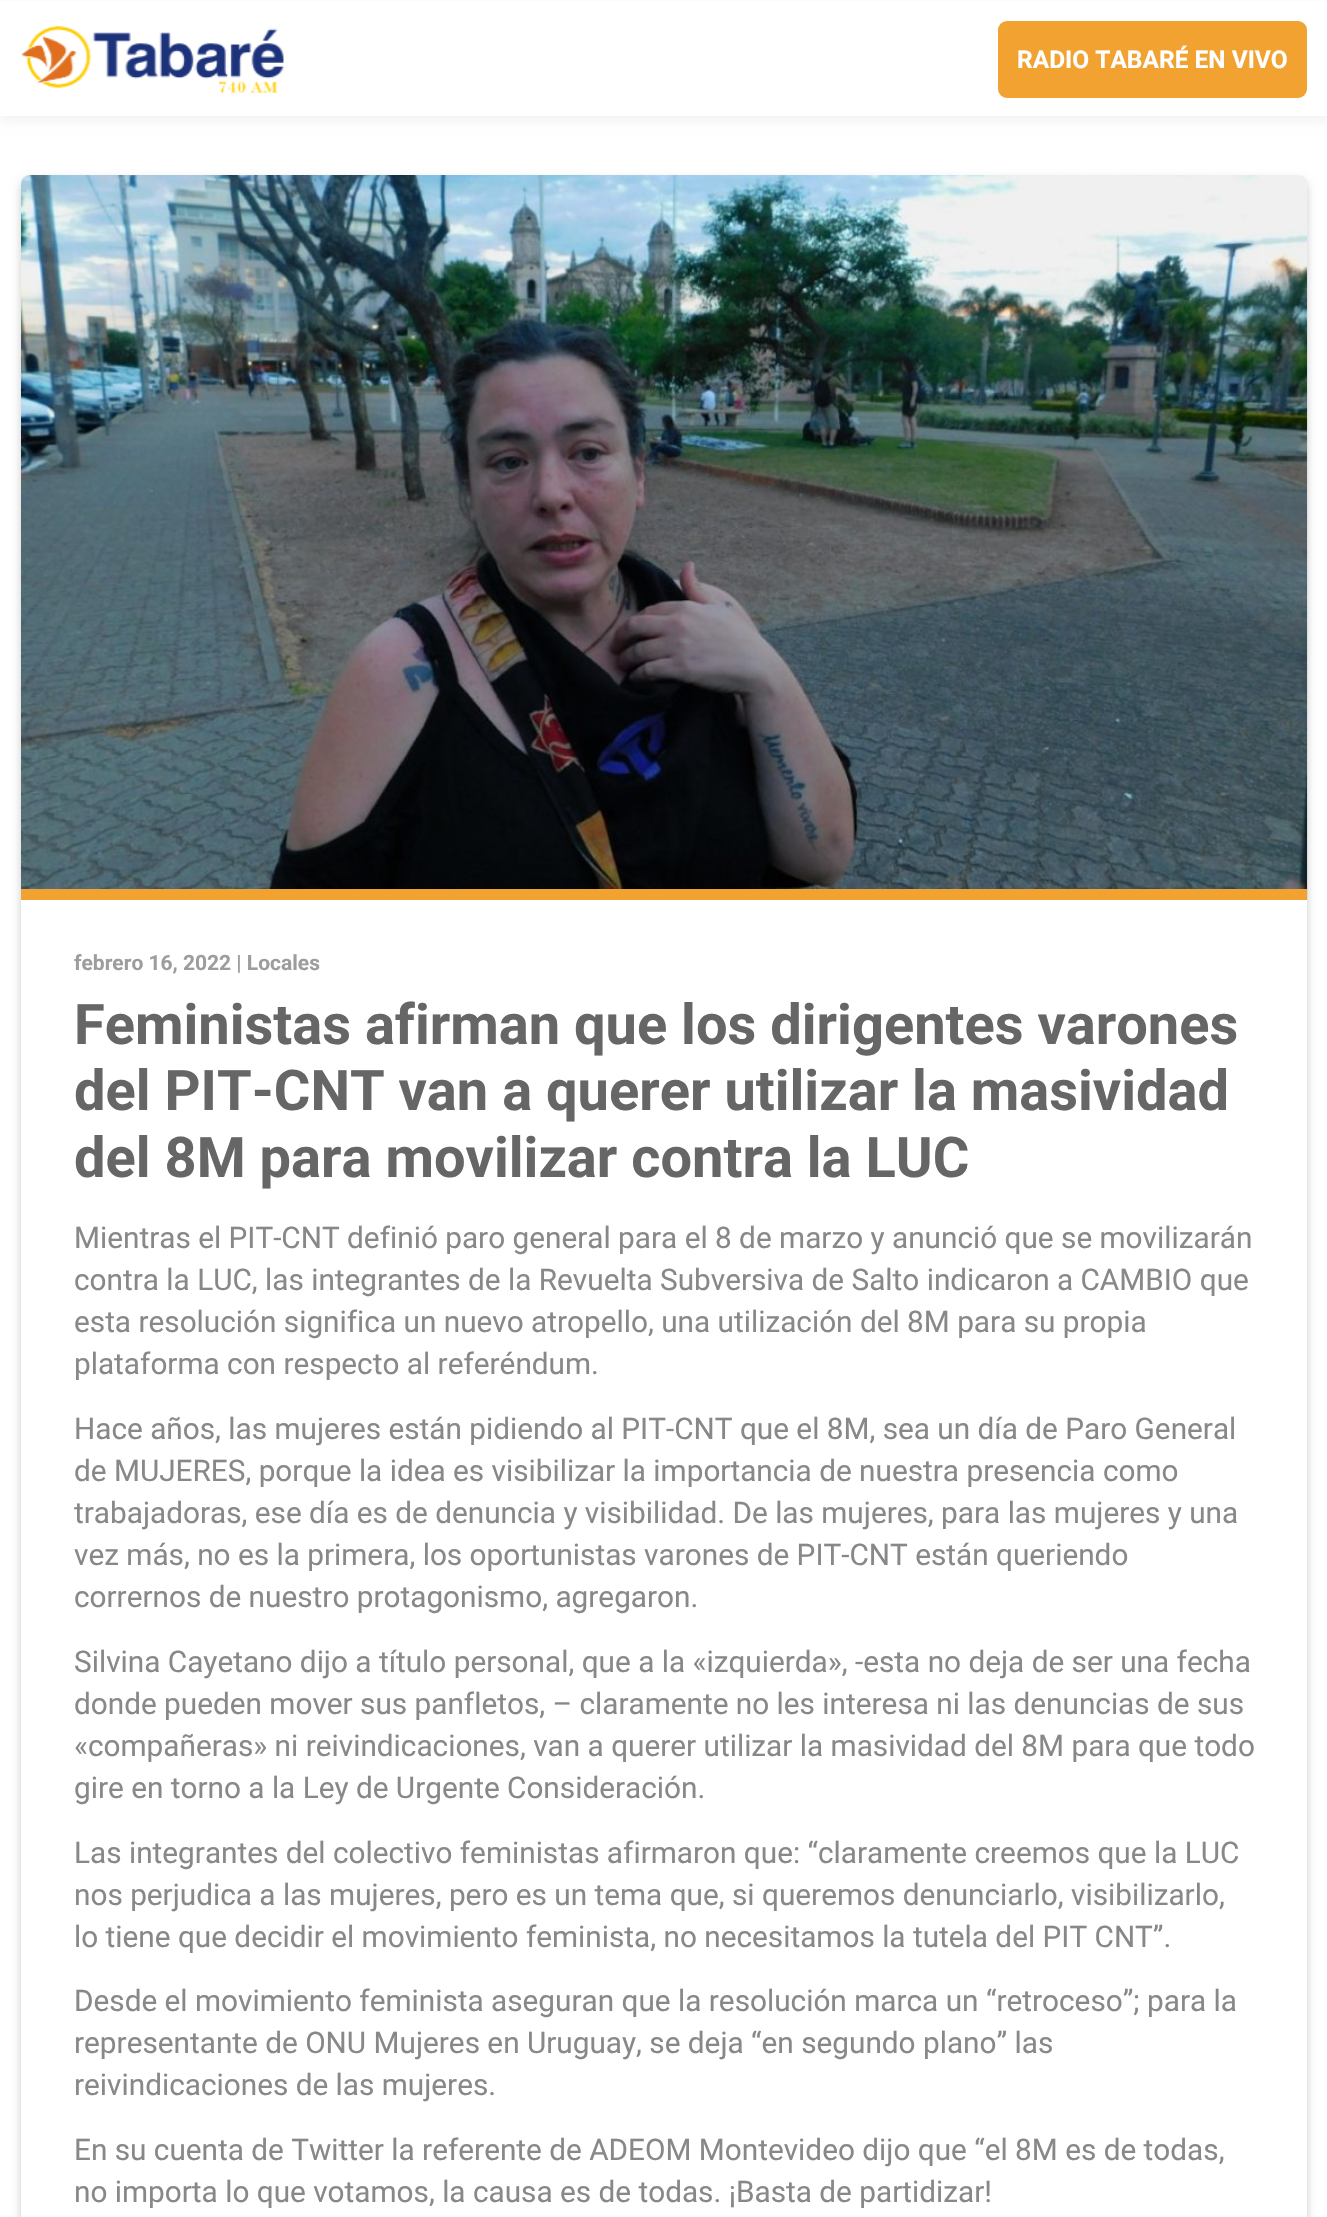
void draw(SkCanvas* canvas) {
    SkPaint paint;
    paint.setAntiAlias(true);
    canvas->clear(0xFFFFFFFF);
    paint.setColor(0x0D000000);
    paint.setMaskFilter(SkMaskFilter::MakeBlur(kNormal_SkBlurStyle, 5));
    canvas->drawRect(SkRect::MakeXYWH(0, 5, 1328, 116), paint);
    paint.setMaskFilter(nullptr);
    paint.setColor(0xFFFFFFFF);
    canvas->drawRect(SkRect::MakeXYWH(0, 1, 1327, 115), paint);
    canvas->drawImageRect(SkImages::DeferredFromEncodedData(SkData::MakeFromFileName("img1.png")), SkRect::MakeXYWH(21, 26, 263, 67), SkSamplingOptions());
    paint.setColor(0xFFF1A230);
    canvas->drawRoundRect(SkRect::MakeXYWH(998, 21, 309, 77), 9, 9, paint);
    SkFont font1(fontMgr->matchFamilyStyle("Roboto", SkFontStyle::Bold()), 24.5f);
    font1.setSubpixel(true);
    paint.setColor(0xFFFFFFFF);
    canvas->drawString("RADIO TABARÉ EN VIVO", 1017, 68, font1, paint);
    canvas->save();
    canvas->clipPath(SkPathBuilder(SkPathFillType::kEvenOdd).moveTo(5, 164).lineTo(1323, 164).lineTo(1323, 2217).lineTo(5, 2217).close().moveTo(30, 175).lineTo(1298, 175).cubicTo(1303, 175, 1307, 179, 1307, 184).lineTo(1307, 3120).cubicTo(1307, 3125, 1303, 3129, 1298, 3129).lineTo(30, 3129).cubicTo(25, 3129, 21, 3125, 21, 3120).lineTo(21, 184).cubicTo(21, 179, 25, 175, 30, 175).close().detach(), true);
    paint.setColor(0x33000000);
    paint.setMaskFilter(SkMaskFilter::MakeBlur(kNormal_SkBlurStyle, 5));
    canvas->drawRoundRect(SkRect::MakeXYWH(21, 180, 1286, 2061), 9, 9, paint);
    paint.setMaskFilter(nullptr);
    canvas->restore();
    canvas->drawImageRect(SkImages::DeferredFromEncodedData(SkData::MakeFromFileName("img2.png")), SkRect::MakeXYWH(21, 175, 1287, 725), SkSamplingOptions());
    paint.setColor(0xFFF1A230);
    canvas->drawRect(SkRect::MakeXYWH(21, 889, 1286, 11), paint);
    SkFont font2(fontMgr->matchFamilyStyle("Roboto", SkFontStyle::Bold()), 21);
    font2.setSubpixel(true);
    paint.setColor(0xFF9D9D9D);
    canvas->drawString("febrero 16, 2022 | Locales", 74, 970, font2, paint);
    SkFont font3(fontMgr->matchFamilyStyle("Roboto", SkFontStyle::Bold()), 56);
    font3.setSubpixel(true);
    paint.setColor(0xFF666666);
    canvas->drawString("Feministas afirman que los dirigentes varones", 74, 1044, font3, paint);
    canvas->drawString("del PIT-CNT van a querer utilizar la masividad", 74, 1110, font3, paint);
    canvas->drawString("del 8M para movilizar contra la LUC", 74, 1177, font3, paint);
    SkFont font4(fontMgr->matchFamilyStyle("Roboto", SkFontStyle::Normal()), 29.75f);
    font4.setSubpixel(true);
    paint.setColor(0xFF888888);
    canvas->drawString("Mientras el PIT-CNT definió paro general para el 8 de marzo y anunció que se movilizarán", 74, 1248, font4, paint);
    canvas->drawString("contra la LUC, las integrantes de la Revuelta Subversiva de Salto indicaron a CAMBIO que", 74, 1290, font4, paint);
    canvas->drawString("esta resolución significa un nuevo atropello, una utilización del 8M para su propia", 74, 1332, font4, paint);
    canvas->drawString("plataforma con respecto al referéndum.", 74, 1374, font4, paint);
    canvas->drawString("Hace años, las mujeres están pidiendo al PIT-CNT que el 8M, sea un día de Paro General", 74, 1439, font4, paint);
    canvas->drawString("de MUJERES, porque la idea es visibilizar la importancia de nuestra presencia como", 74, 1481, font4, paint);
    canvas->drawString("trabajadoras, ese día es de denuncia y visibilidad. De las mujeres, para las mujeres y una", 74, 1523, font4, paint);
    canvas->drawString("vez más, no es la primera, los oportunistas varones de PIT-CNT están queriendo", 74, 1565, font4, paint);
    canvas->drawString("corrernos de nuestro protagonismo, agregaron.", 74, 1607, font4, paint);
    canvas->drawString("Silvina Cayetano dijo a título personal, que a la «izquierda», -esta no deja de ser una fecha", 74, 1672, font4, paint);
    canvas->drawString("donde pueden mover sus panfletos, – claramente no les interesa ni las denuncias de sus", 74, 1714, font4, paint);
    canvas->drawString("«compañeras» ni reivindicaciones, van a querer utilizar la masividad del 8M para que todo", 74, 1756, font4, paint);
    canvas->drawString("gire en torno a la Ley de Urgente Consideración.", 74, 1798, font4, paint);
    canvas->drawString("Las integrantes del colectivo feministas afirmaron que: “claramente creemos que la LUC", 74, 1863, font4, paint);
    canvas->drawString("nos perjudica a las mujeres, pero es un tema que, si queremos denunciarlo, visibilizarlo,", 74, 1905, font4, paint);
    canvas->drawString("lo tiene que decidir el movimiento feminista, no necesitamos la tutela del PIT CNT”.", 74, 1947, font4, paint);
    canvas->drawString("Desde el movimiento feminista aseguran que la resolución marca un “retroceso”; para la", 74, 2011, font4, paint);
    canvas->drawString("representante de ONU Mujeres en Uruguay, se deja “en segundo plano” las", 74, 2053, font4, paint);
    canvas->drawString("reivindicaciones de las mujeres.", 74, 2095, font4, paint);
    canvas->drawString("En su cuenta de Twitter la referente de ADEOM Montevideo dijo que “el 8M es de todas,", 74, 2160, font4, paint);
    canvas->drawString("no importa lo que votamos, la causa es de todas. ¡Basta de partidizar!", 74, 2202, font4, paint);
}
